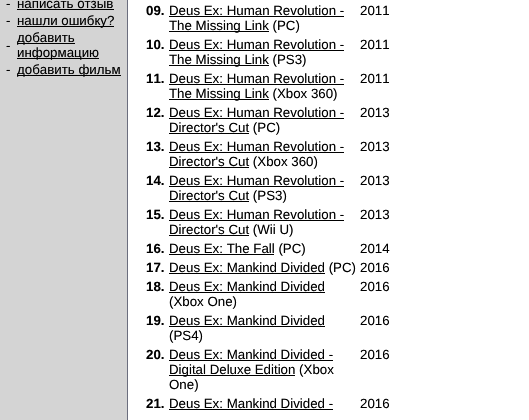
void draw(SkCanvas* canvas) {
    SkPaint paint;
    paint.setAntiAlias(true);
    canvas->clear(0xFFFFFFFF);
    paint.setColor(0xFFD4D4D4);
    canvas->drawRect(SkRect::MakeXYWH(0, 0, 127, 420), paint);
    SkFont font1(fontMgr->matchFamilyStyle("Liberation Sans", SkFontStyle::Normal()), 13.3f);
    font1.setSubpixel(true);
    paint.setColor(0xFF000000);
    canvas->drawString("-", 6, 8, font1, paint);
    canvas->drawString("написать отзыв", 17, 8, font1, paint);
    canvas->drawRect(SkRect::MakeXYWH(17, 9, 97, 1), paint);
    canvas->drawString("-", 6, 25, font1, paint);
    canvas->drawRect(SkRect::MakeXYWH(17, 26, 97, 1), paint);
    canvas->drawString("нашли ошибку?", 17, 25, font1, paint);
    canvas->drawString("-", 6, 50, font1, paint);
    canvas->drawRect(SkRect::MakeXYWH(17, 43, 58, 1), paint);
    canvas->drawString("добавить", 17, 42, font1, paint);
    canvas->drawRect(SkRect::MakeXYWH(17, 58, 82, 1), paint);
    canvas->drawString("информацию", 17, 57, font1, paint);
    canvas->drawString("-", 6, 74, font1, paint);
    canvas->drawRect(SkRect::MakeXYWH(17, 75, 104, 1), paint);
    canvas->drawString("добавить фильм", 17, 74, font1, paint);
    paint.setColor(0xFF6B6E7E);
    canvas->drawRect(SkRect::MakeXYWH(127, 0, 1, 420), paint);
    SkFont font2(fontMgr->matchFamilyStyle("Liberation Sans", SkFontStyle::Bold()), 13.3f);
    font2.setSubpixel(true);
    paint.setColor(0xFF000000);
    canvas->drawString("09.", 146, 15, font2, paint);
    canvas->drawString("Deus Ex: Human Revolution -", 169, 15, font1, paint);
    canvas->drawRect(SkRect::MakeXYWH(169, 16, 175, 1), paint);
    canvas->drawRect(SkRect::MakeXYWH(169, 31, 100, 1), paint);
    canvas->drawString("The Missing Link (PC)", 169, 30, font1, paint);
    canvas->drawString("2011", 360, 15, font1, paint);
    canvas->drawString("10.", 146, 49, font2, paint);
    canvas->drawString("Deus Ex: Human Revolution -", 169, 49, font1, paint);
    canvas->drawRect(SkRect::MakeXYWH(169, 50, 175, 1), paint);
    canvas->drawRect(SkRect::MakeXYWH(169, 65, 100, 1), paint);
    canvas->drawString("The Missing Link (PS3)", 169, 64, font1, paint);
    canvas->drawString("2011", 360, 49, font1, paint);
    canvas->drawString("11.", 146, 83, font2, paint);
    canvas->drawString("Deus Ex: Human Revolution -", 169, 83, font1, paint);
    canvas->drawRect(SkRect::MakeXYWH(169, 84, 175, 1), paint);
    canvas->drawRect(SkRect::MakeXYWH(169, 99, 100, 1), paint);
    canvas->drawString("The Missing Link (Xbox 360)", 169, 98, font1, paint);
    canvas->drawString("2011", 360, 83, font1, paint);
    canvas->drawString("12.", 146, 117, font2, paint);
    canvas->drawString("Deus Ex: Human Revolution -", 169, 117, font1, paint);
    canvas->drawRect(SkRect::MakeXYWH(169, 118, 175, 1), paint);
    canvas->drawRect(SkRect::MakeXYWH(169, 133, 80, 1), paint);
    canvas->drawString("Director's Cut (PC)", 169, 132, font1, paint);
    canvas->drawString("2013", 360, 117, font1, paint);
    canvas->drawString("13.", 146, 151, font2, paint);
    canvas->drawString("Deus Ex: Human Revolution -", 169, 151, font1, paint);
    canvas->drawRect(SkRect::MakeXYWH(169, 152, 175, 1), paint);
    canvas->drawRect(SkRect::MakeXYWH(169, 167, 80, 1), paint);
    canvas->drawString("Director's Cut (Xbox 360)", 169, 166, font1, paint);
    canvas->drawString("2013", 360, 151, font1, paint);
    canvas->drawString("14.", 146, 185, font2, paint);
    canvas->drawString("Deus Ex: Human Revolution -", 169, 185, font1, paint);
    canvas->drawRect(SkRect::MakeXYWH(169, 186, 175, 1), paint);
    canvas->drawRect(SkRect::MakeXYWH(169, 201, 80, 1), paint);
    canvas->drawString("Director's Cut (PS3)", 169, 200, font1, paint);
    canvas->drawString("2013", 360, 185, font1, paint);
    canvas->drawString("15.", 146, 219, font2, paint);
    canvas->drawString("Deus Ex: Human Revolution -", 169, 219, font1, paint);
    canvas->drawRect(SkRect::MakeXYWH(169, 220, 175, 1), paint);
    canvas->drawRect(SkRect::MakeXYWH(169, 235, 80, 1), paint);
    canvas->drawString("Director's Cut (Wii U)", 169, 234, font1, paint);
    canvas->drawString("2013", 360, 219, font1, paint);
    canvas->drawString("16.", 146, 253, font2, paint);
    canvas->drawRect(SkRect::MakeXYWH(169, 254, 105, 1), paint);
    canvas->drawString("Deus Ex: The Fall (PC)", 169, 253, font1, paint);
    canvas->drawString("2014", 360, 253, font1, paint);
    canvas->drawString("17.", 146, 272, font2, paint);
    canvas->drawRect(SkRect::MakeXYWH(169, 273, 156, 1), paint);
    canvas->drawString("Deus Ex: Mankind Divided (PC)", 169, 272, font1, paint);
    canvas->drawString("2016", 360, 272, font1, paint);
    canvas->drawString("18.", 146, 291, font2, paint);
    canvas->drawString("Deus Ex: Mankind Divided", 169, 291, font1, paint);
    canvas->drawRect(SkRect::MakeXYWH(169, 292, 156, 1), paint);
    canvas->drawString("(Xbox One)", 169, 306, font1, paint);
    canvas->drawString("2016", 360, 291, font1, paint);
    canvas->drawString("19.", 146, 325, font2, paint);
    canvas->drawString("Deus Ex: Mankind Divided", 169, 325, font1, paint);
    canvas->drawRect(SkRect::MakeXYWH(169, 326, 156, 1), paint);
    canvas->drawString("(PS4)", 169, 340, font1, paint);
    canvas->drawString("2016", 360, 325, font1, paint);
    canvas->drawString("20.", 146, 359, font2, paint);
    canvas->drawString("Deus Ex: Mankind Divided -", 169, 359, font1, paint);
    canvas->drawRect(SkRect::MakeXYWH(169, 360, 164, 1), paint);
    canvas->drawRect(SkRect::MakeXYWH(169, 375, 126, 1), paint);
    canvas->drawString("Digital Deluxe Edition (Xbox", 169, 374, font1, paint);
    canvas->drawString("One)", 169, 389, font1, paint);
    canvas->drawString("2016", 360, 359, font1, paint);
    canvas->drawString("21.", 146, 408, font2, paint);
    canvas->drawString("Deus Ex: Mankind Divided -", 169, 408, font1, paint);
    canvas->drawRect(SkRect::MakeXYWH(169, 409, 164, 1), paint);
    canvas->drawString("2016", 360, 408, font1, paint);
}
